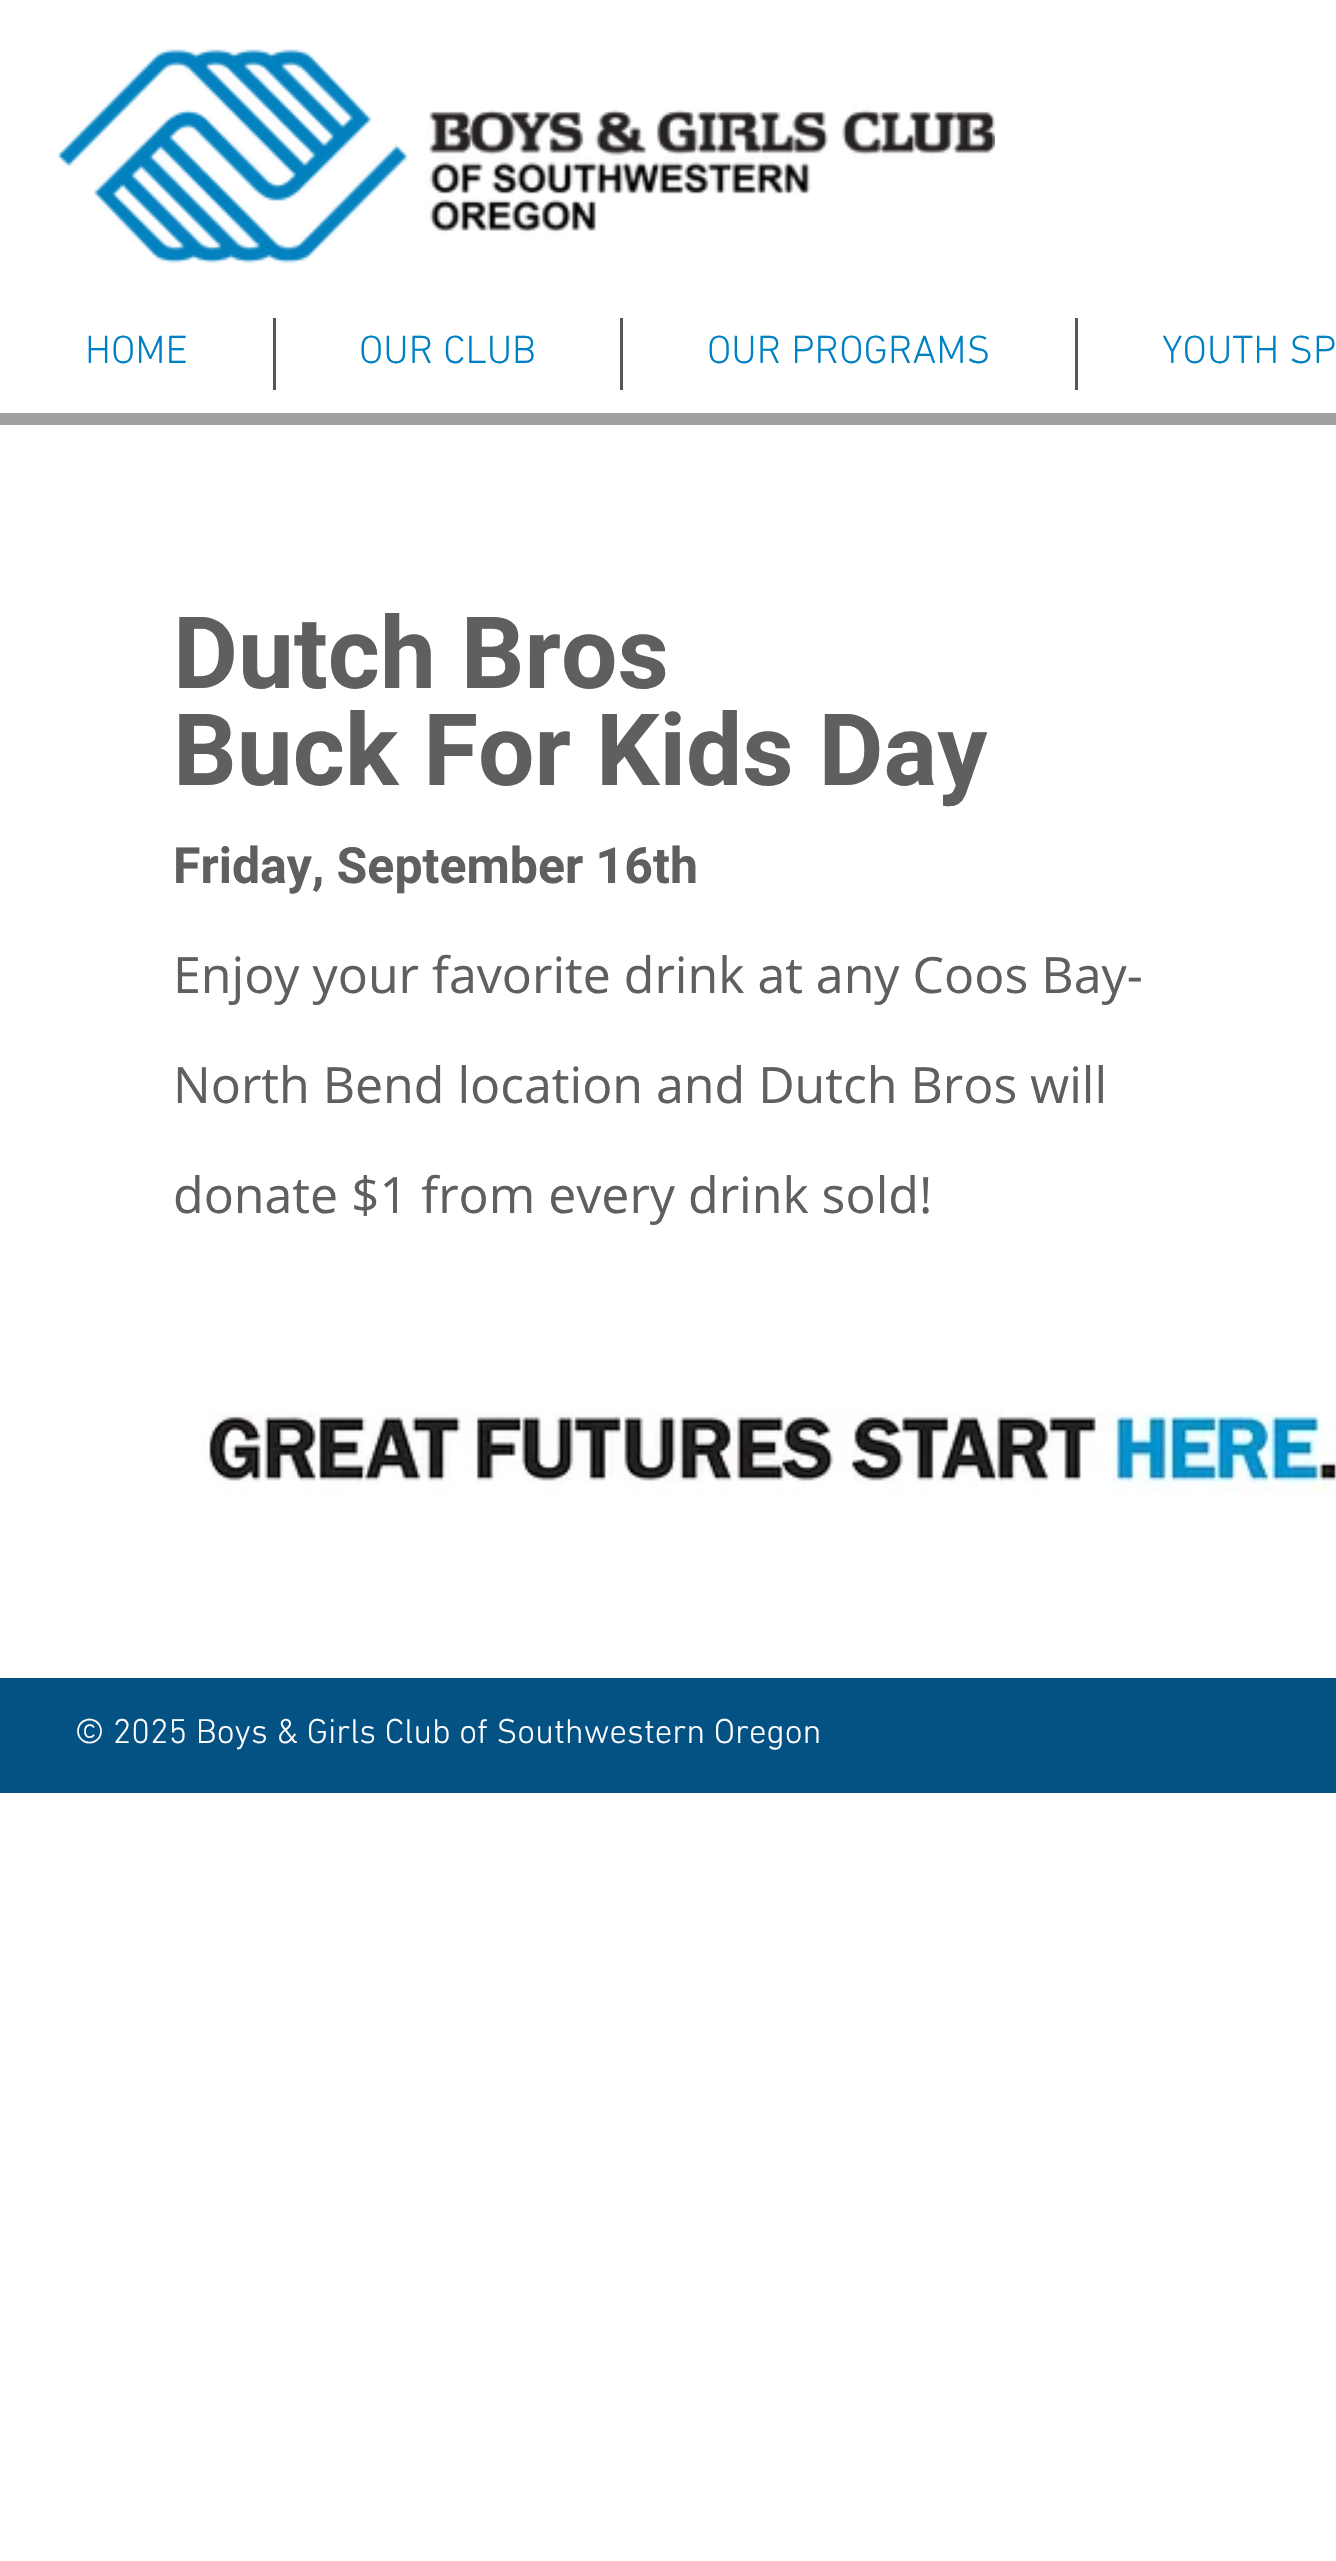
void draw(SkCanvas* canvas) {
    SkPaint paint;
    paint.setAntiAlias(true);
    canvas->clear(0xFFFFFFFF);
    canvas->drawImageRect(SkImages::DeferredFromEncodedData(SkData::MakeFromFileName("img1.png")), SkRect::MakeXYWH(57, 49, 938, 215), SkSamplingOptions());
    SkFont font1(fontMgr->matchFamilyStyle("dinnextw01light", SkFontStyle(300, SkFontStyle::kNormal_Width, SkFontStyle::kUpright_Slant)), 40);
    font1.setSubpixel(true);
    paint.setColor(0xFF0081C3);
    canvas->drawString("HOME", 85, 363, font1, paint);
    paint.setColor(0xFF53565A);
    canvas->drawRect(SkRect::MakeXYWH(273, 318, 3, 72), paint);
    paint.setColor(0xFF0081C3);
    canvas->drawString("OUR CLUB", 359, 363, font1, paint);
    paint.setColor(0xFF53565A);
    canvas->drawRect(SkRect::MakeXYWH(620, 318, 3, 72), paint);
    paint.setColor(0xFF0081C3);
    canvas->drawString("OUR PROGRAMS", 707, 363, font1, paint);
    paint.setColor(0xFF53565A);
    canvas->drawRect(SkRect::MakeXYWH(1075, 318, 3, 72), paint);
    paint.setColor(0xFF0081C3);
    canvas->drawString("YOUTH SP", 1162, 363, font1, paint);
    paint.setColor(0xFFA0A09F);
    canvas->drawRect(SkRect::MakeXYWH(0, 413, 1336, 12), paint);
    SkFont font2(fontMgr->matchFamilyStyle("Roboto", SkFontStyle::Bold()), 100);
    font2.setSubpixel(true);
    paint.setColor(0xFF605E5E);
    canvas->drawString("Dutch Bros", 173, 688, font2, paint);
    canvas->drawString("Buck For Kids Day", 173, 785, font2, paint);
    SkFont font3(fontMgr->matchFamilyStyle("Roboto", SkFontStyle::Bold()), 50);
    font3.setSubpixel(true);
    canvas->drawString("Friday, September 16th", 173, 883, font3, paint);
    SkFont font4(fontMgr->matchFamilyStyle("Open Sans", SkFontStyle::Normal()), 50);
    font4.setSubpixel(true);
    canvas->drawString("Enjoy your favorite drink at any Coos Bay-", 173, 993, font4, paint);
    canvas->drawString("North Bend location and Dutch Bros will", 173, 1103, font4, paint);
    canvas->drawString("donate $1 from every drink sold!", 173, 1213, font4, paint);
    canvas->drawImageRect(SkImages::DeferredFromEncodedData(SkData::MakeFromFileName("img2.png")), SkRect::MakeXYWH(203, 1411, 1133, 83), SkSamplingOptions());
    paint.setColor(0xFF045184);
    canvas->drawRect(SkRect::MakeXYWH(0, 1678, 1336, 115), paint);
    SkFont font5(fontMgr->matchFamilyStyle("dinnextw01light", SkFontStyle(300, SkFontStyle::kNormal_Width, SkFontStyle::kUpright_Slant)), 35);
    font5.setSubpixel(true);
    paint.setColor(0xFFFFFFFF);
    canvas->drawString("© 2025 Boys & Girls Club of Southwestern Oregon", 75, 1743, font5, paint);
}
